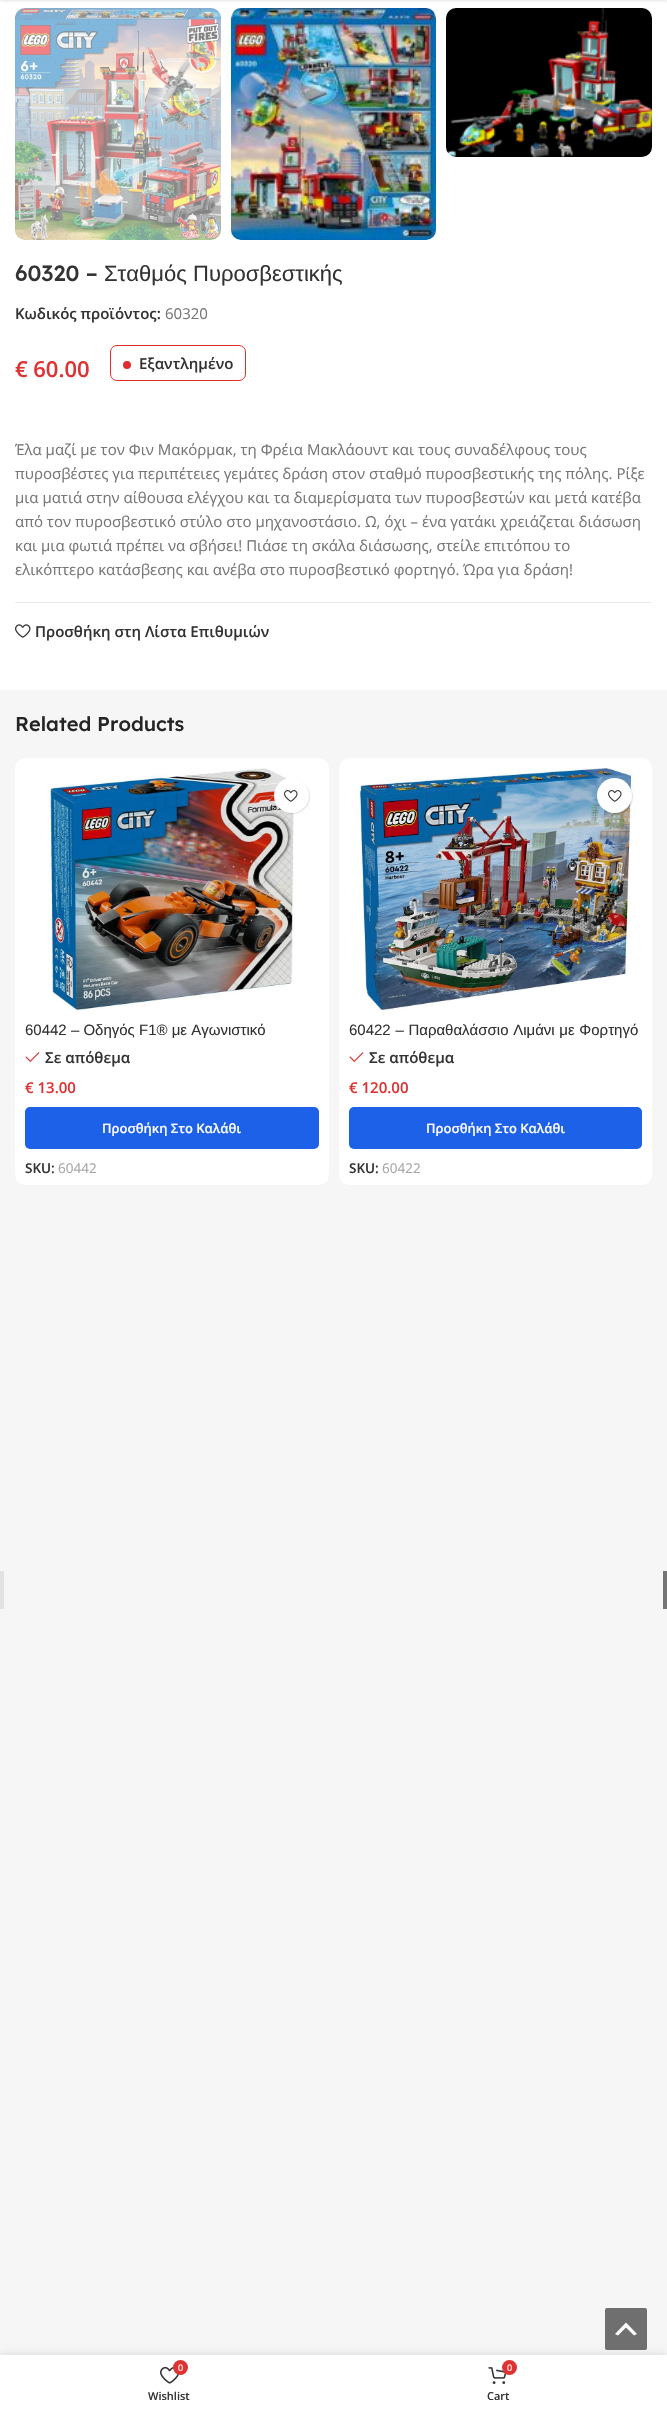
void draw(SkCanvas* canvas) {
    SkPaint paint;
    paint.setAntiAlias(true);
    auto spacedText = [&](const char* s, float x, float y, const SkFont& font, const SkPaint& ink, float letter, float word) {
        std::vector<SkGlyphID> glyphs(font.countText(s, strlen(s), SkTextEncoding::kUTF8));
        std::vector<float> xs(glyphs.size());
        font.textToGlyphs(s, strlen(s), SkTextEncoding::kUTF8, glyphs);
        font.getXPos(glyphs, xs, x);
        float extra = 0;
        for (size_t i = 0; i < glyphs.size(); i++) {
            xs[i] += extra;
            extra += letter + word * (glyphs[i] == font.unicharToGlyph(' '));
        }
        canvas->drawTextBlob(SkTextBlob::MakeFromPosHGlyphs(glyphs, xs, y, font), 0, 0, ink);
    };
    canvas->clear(0xFFF6F6F6);
    paint.setColor(0xFFFFFFFF);
    canvas->drawRect(SkRect::MakeXYWH(0, 0, 667, 690), paint);
    paint.setColor(0x1A000000);
    paint.setMaskFilter(SkMaskFilter::MakeBlur(kNormal_SkBlurStyle, 1.5f));
    canvas->drawRect(SkRect::MakeXYWH(0, -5, 667, 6), paint);
    paint.setMaskFilter(nullptr);
    canvas->drawImageRect(SkImages::DeferredFromEncodedData(SkData::MakeFromFileName("img1.png")), SkRect::MakeXYWH(15, 8, 206, 232), SkSamplingOptions());
    canvas->drawImageRect(SkImages::DeferredFromEncodedData(SkData::MakeFromFileName("img2.png")), SkRect::MakeXYWH(231, 8, 205, 232), SkSamplingOptions());
    canvas->drawImageRect(SkImages::DeferredFromEncodedData(SkData::MakeFromFileName("img3.png")), SkRect::MakeXYWH(446, 8, 206, 149), SkSamplingOptions());
    SkFont font1(fontMgr->matchFamilyStyle("Lexend Deca", SkFontStyle(500, SkFontStyle::kNormal_Width, SkFontStyle::kUpright_Slant)), 22);
    font1.setSubpixel(true);
    paint.setColor(0xFF333333);
    canvas->drawString("60320 –", 15, 281, font1, paint);
    SkFont font2(fontMgr->matchFamilyStyle("Liberation Sans", SkFontStyle::Normal()), 22);
    font2.setSubpixel(true);
    canvas->drawString("Σταθμός", 104, 281, font2, paint);
    canvas->drawString("Πυροσβεστικής", 193, 281, font2, paint);
    SkFont font3(fontMgr->matchFamilyStyle("Open Sans", SkFontStyle(600, SkFontStyle::kNormal_Width, SkFontStyle::kUpright_Slant)), 15);
    font3.setSubpixel(true);
    canvas->drawString("Κωδικός προϊόντος:", 15, 319, font3, paint);
    SkFont font4(fontMgr->matchFamilyStyle("Open Sans", SkFontStyle::Normal()), 15);
    font4.setSubpixel(true);
    paint.setColor(0xFF767676);
    canvas->drawString("60320", 165, 319, font4, paint);
    SkFont font5(fontMgr->matchFamilyStyle("Open Sans", SkFontStyle(600, SkFontStyle::kNormal_Width, SkFontStyle::kUpright_Slant)), 22);
    font5.setSubpixel(true);
    paint.setColor(0xFFDD3333);
    canvas->drawString("€ 60.00", 15, 377, font5, paint);
    paint.setStyle(SkPaint::kStroke_Style);
    paint.setStrokeWidth(1);
    paint.setColor(0xFFE22D2D);
    canvas->drawRoundRect(SkRect::MakeXYWH(110.5f, 345.5f, 135, 35), 6.5f, 6.5f, paint);
    paint.setStyle(SkPaint::kFill_Style);
    canvas->drawCircle(127, 365, 4, paint);
    paint.setColor(0xFF333333);
    canvas->drawString("Εξαντλημένο", 139, 369, font3, paint);
    paint.setColor(0xFF767676);
    canvas->drawString("Έλα μαζί με τον Φιν Μακόρμακ, τη Φρέια Μακλάουντ και τους συναδέλφους τους", 15, 455, font4, paint);
    canvas->drawString("πυροσβέστες για περιπέτειες γεμάτες δράση στον σταθμό πυροσβεστικής της πόλης. Ρίξε", 15, 479, font4, paint);
    canvas->drawString("μια ματιά στην αίθουσα ελέγχου και τα διαμερίσματα των πυροσβεστών και μετά κατέβα", 15, 503, font4, paint);
    canvas->drawString("από τον πυροσβεστικό στύλο στο μηχανοστάσιο. Ω, όχι – ένα γατάκι χρειάζεται διάσωση", 15, 527, font4, paint);
    canvas->drawString("και μια φωτιά πρέπει να σβήσει! Πιάσε τη σκάλα διάσωσης, στείλε επιτόπου το", 15, 551, font4, paint);
    canvas->drawString("ελικόπτερο κατάσβεσης και ανέβα στο πυροσβεστικό φορτηγό. Ώρα για δράση!", 15, 575, font4, paint);
    paint.setColor(0xFFEBEBEB);
    canvas->drawRect(SkRect::MakeXYWH(15, 602, 637, 1), paint);
    canvas->drawImageRect(SkImages::DeferredFromEncodedData(SkData::MakeFromFileName("img4.png")), SkRect::MakeXYWH(15, 624, 16, 14), SkSamplingOptions());
    paint.setColor(0xFF333333);
    canvas->drawString("Προσθήκη στη Λίστα Επιθυμιών", 35, 637, font3, paint);
    SkFont font6(fontMgr->matchFamilyStyle("Lexend Deca", SkFontStyle(500, SkFontStyle::kNormal_Width, SkFontStyle::kUpright_Slant)), 20);
    font6.setSubpixel(true);
    paint.setColor(0xFF242424);
    canvas->drawString("Related Products", 15, 731, font6, paint);
    paint.setColor(0xFFFFFFFF);
    canvas->drawRoundRect(SkRect::MakeXYWH(15, 758, 314, 427), 10, 10, paint);
    canvas->drawImageRect(SkImages::DeferredFromEncodedData(SkData::MakeFromFileName("img5.png")), SkRect::MakeXYWH(47, 768, 247, 242), SkSamplingOptions());
    paint.setColor(0x1A000000);
    paint.setMaskFilter(SkMaskFilter::MakeBlur(kNormal_SkBlurStyle, 0.5f));
    canvas->drawRoundRect(SkRect::MakeXYWH(275, 779, 35, 35), 17.5f, 17.5f, paint);
    paint.setMaskFilter(nullptr);
    paint.setColor(0xFFFFFFFF);
    canvas->drawCircle(291.5f, 795.5f, 17.5f, paint);
    canvas->drawImageRect(SkImages::DeferredFromEncodedData(SkData::MakeFromFileName("img6.png")), SkRect::MakeXYWH(284, 790, 14, 12), SkSamplingOptions());
    SkFont font7(fontMgr->matchFamilyStyle("Liberation Sans", SkFontStyle::Normal()), 15);
    font7.setSubpixel(true);
    paint.setColor(0xFF333333);
    canvas->drawString("60442 – Οδηγός F1® με Αγωνιστικό", 25, 1035, font7, paint);
    canvas->drawImageRect(SkImages::DeferredFromEncodedData(SkData::MakeFromFileName("img7.png")), SkRect::MakeXYWH(25, 1052, 15, 10), SkSamplingOptions());
    canvas->drawString("Σε απόθεμα", 45, 1063, font3, paint);
    paint.setColor(0xFFDD3333);
    canvas->drawString("€ 13.00", 25, 1093, font3, paint);
    paint.setColor(0xFF1C61E7);
    canvas->drawRoundRect(SkRect::MakeXYWH(25, 1107, 294, 42), 5, 5, paint);
    SkFont font8(fontMgr->matchFamilyStyle("Open Sans", SkFontStyle(600, SkFontStyle::kNormal_Width, SkFontStyle::kUpright_Slant)), 13);
    font8.setSubpixel(true);
    paint.setColor(0xFFFFFFFF);
    canvas->drawString("Προσθήκη Στο Καλάθι", 102, 1133, font8, paint);
    SkFont font9(fontMgr->matchFamilyStyle("Open Sans", SkFontStyle(600, SkFontStyle::kNormal_Width, SkFontStyle::kUpright_Slant)), 13.5f);
    font9.setSubpixel(true);
    paint.setColor(0xFF333333);
    canvas->drawString("SKU:", 25, 1173, font9, paint);
    SkFont font10(fontMgr->matchFamilyStyle("Open Sans", SkFontStyle::Normal()), 13.5f);
    font10.setSubpixel(true);
    paint.setColor(0xFFA5A5A5);
    canvas->drawString("60442", 58, 1173, font10, paint);
    paint.setColor(0xFFFFFFFF);
    canvas->drawRoundRect(SkRect::MakeXYWH(339, 758, 313, 427), 10, 10, paint);
    canvas->drawImageRect(SkImages::DeferredFromEncodedData(SkData::MakeFromFileName("img8.png")), SkRect::MakeXYWH(359, 768, 277, 242), SkSamplingOptions());
    paint.setColor(0x1A000000);
    paint.setMaskFilter(SkMaskFilter::MakeBlur(kNormal_SkBlurStyle, 0.5f));
    canvas->drawRoundRect(SkRect::MakeXYWH(598, 779, 35, 35), 17.5f, 17.5f, paint);
    paint.setMaskFilter(nullptr);
    paint.setColor(0xFFFFFFFF);
    canvas->drawCircle(614.5f, 795.5f, 17.5f, paint);
    canvas->drawImageRect(SkImages::DeferredFromEncodedData(SkData::MakeFromFileName("img6.png")), SkRect::MakeXYWH(608, 790, 14, 12), SkSamplingOptions());
    paint.setColor(0xFF333333);
    spacedText("60422 – Παραθαλάσσιο Λιμάνι με Φορτηγό", 349, 1035, font7, paint, 0, 0.5f);
    canvas->drawImageRect(SkImages::DeferredFromEncodedData(SkData::MakeFromFileName("img7.png")), SkRect::MakeXYWH(349, 1052, 15, 10), SkSamplingOptions());
    canvas->drawString("Σε απόθεμα", 369, 1063, font3, paint);
    paint.setColor(0xFFDD3333);
    canvas->drawString("€ 120.00", 349, 1093, font3, paint);
    paint.setColor(0xFF1C61E7);
    canvas->drawRoundRect(SkRect::MakeXYWH(349, 1107, 293, 42), 5, 5, paint);
    paint.setColor(0xFFFFFFFF);
    canvas->drawString("Προσθήκη Στο Καλάθι", 426, 1133, font8, paint);
    paint.setColor(0xFF333333);
    canvas->drawString("SKU:", 349, 1173, font9, paint);
    paint.setColor(0xFFA5A5A5);
    canvas->drawString("60422", 382, 1173, font10, paint);
    paint.setColor(0xFFE2E2E2);
    canvas->drawRect(SkRect::MakeXYWH(0, 1571, 4, 38), paint);
    paint.setColor(0xFF757575);
    canvas->drawRect(SkRect::MakeXYWH(663, 1571, 4, 38), paint);
    paint.setColor(0x1F000000);
    paint.setMaskFilter(SkMaskFilter::MakeBlur(kNormal_SkBlurStyle, 4.5f));
    canvas->drawRect(SkRect::MakeXYWH(0, 2355, 667, 55), paint);
    paint.setMaskFilter(nullptr);
    paint.setColor(0x8C000000);
    canvas->drawRoundRect(SkRect::MakeXYWH(605, 2308, 42, 42), 2, 2, paint);
    paint.setColor(0xFFFBFBFB);
    canvas->drawPath(SkPathBuilder().moveTo(634, 2335.5f).lineTo(626, 2327.5f).lineTo(618, 2335.5f).lineTo(615, 2334).lineTo(626, 2322.5f).lineTo(637, 2334).close().detach(), paint);
    paint.setColor(0xFFFFFFFF);
    canvas->drawRect(SkRect::MakeXYWH(0, 2355, 667, 55), paint);
    canvas->drawImageRect(SkImages::DeferredFromEncodedData(SkData::MakeFromFileName("img9.png")), SkRect::MakeXYWH(160, 2366, 20, 18), SkSamplingOptions());
    paint.setColor(0xFFDD3333);
    canvas->drawCircle(180.5f, 2367.5f, 7.5f, paint);
    SkFont font11(fontMgr->matchFamilyStyle("Open Sans", SkFontStyle::Normal()), 9);
    font11.setSubpixel(true);
    paint.setColor(0xFFFFFFFF);
    canvas->drawString("0", 178, 2371, font11, paint);
    SkFont font12(fontMgr->matchFamilyStyle("Open Sans", SkFontStyle(600, SkFontStyle::kNormal_Width, SkFontStyle::kUpright_Slant)), 11);
    font12.setSubpixel(true);
    paint.setColor(0xFF333333);
    canvas->drawString("Wishlist", 148, 2400, font12, paint);
    canvas->drawImageRect(SkImages::DeferredFromEncodedData(SkData::MakeFromFileName("img10.png")), SkRect::MakeXYWH(488, 2367, 19, 17), SkSamplingOptions());
    paint.setColor(0xFFDD3333);
    canvas->drawCircle(509.5f, 2367.5f, 7.5f, paint);
    paint.setColor(0xFFFFFFFF);
    canvas->drawString("0", 507, 2371, font11, paint);
    paint.setColor(0xFF333333);
    canvas->drawString("Cart", 487, 2400, font12, paint);
}
